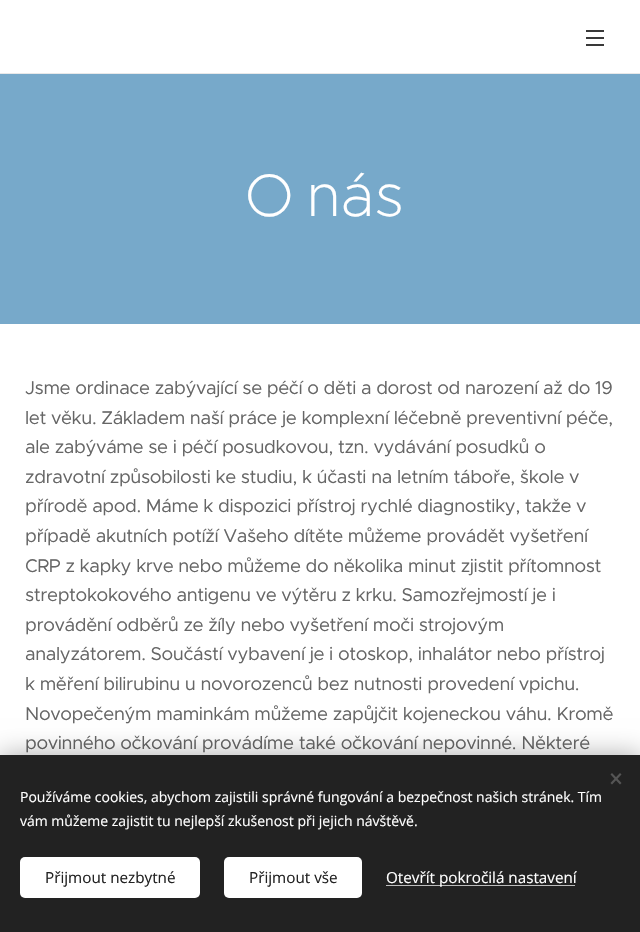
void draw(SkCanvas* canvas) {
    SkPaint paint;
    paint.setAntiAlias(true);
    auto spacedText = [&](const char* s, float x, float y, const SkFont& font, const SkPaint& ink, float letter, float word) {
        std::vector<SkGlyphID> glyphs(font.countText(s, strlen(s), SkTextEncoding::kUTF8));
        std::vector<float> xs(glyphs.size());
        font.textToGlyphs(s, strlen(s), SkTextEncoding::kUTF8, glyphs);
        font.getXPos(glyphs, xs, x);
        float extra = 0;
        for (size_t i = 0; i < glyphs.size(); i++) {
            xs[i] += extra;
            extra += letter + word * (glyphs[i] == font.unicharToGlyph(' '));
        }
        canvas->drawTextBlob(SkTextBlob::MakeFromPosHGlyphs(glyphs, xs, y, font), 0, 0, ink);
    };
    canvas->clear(0xFFFFFFFF);
    paint.setColor(0xFF393939);
    canvas->drawRect(SkRect::MakeXYWH(586, 37, 18, 2), paint);
    canvas->drawRect(SkRect::MakeXYWH(586, 30, 18, 2), paint);
    canvas->drawRect(SkRect::MakeXYWH(586, 44, 18, 2), paint);
    paint.setColor(0xFFE8E8E8);
    canvas->drawRect(SkRect::MakeXYWH(0, 73, 640, 1), paint);
    paint.setColor(0xFF77A9CA);
    canvas->drawRect(SkRect::MakeXYWH(0, 74, 640, 250), paint);
    SkFont font1(fontMgr->matchFamilyStyle("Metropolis", SkFontStyle(200, SkFontStyle::kNormal_Width, SkFontStyle::kUpright_Slant)), 60);
    font1.setSubpixel(true);
    paint.setColor(0xFFFFFFFF);
    spacedText("O nás", 245, 216, font1, paint, 0, -4);
    SkFont font2(fontMgr->matchFamilyStyle("Metropolis", SkFontStyle::Normal()), 18.5f);
    font2.setSubpixel(true);
    paint.setColor(0xFF666666);
    spacedText("Jsme ordinace zabývající se péčí o děti a dorost od narození až do 19", 25, 394, font2, paint, -0.37f, 0);
    spacedText("let věku. Základem naší práce je komplexní léčebně preventivní péče,", 25, 424, font2, paint, -0.37f, 0);
    spacedText("ale zabýváme se i péčí posudkovou, tzn. vydávání posudků o", 25, 453, font2, paint, -0.37f, 0);
    spacedText("zdravotní způsobilosti ke studiu, k účasti na letním táboře, škole v", 25, 483, font2, paint, -0.37f, 0);
    spacedText("přírodě apod. Máme k dispozici přístroj rychlé diagnostiky, takže v", 25, 512, font2, paint, -0.37f, 0);
    spacedText("případě akutních potíží Vašeho dítěte můžeme provádět vyšetření", 25, 542, font2, paint, -0.37f, 0);
    spacedText("CRP z kapky krve nebo můžeme do několika minut zjistit přítomnost", 25, 572, font2, paint, -0.37f, 0);
    spacedText("streptokokového antigenu ve výtěru z krku. Samozřejmostí je i", 25, 601, font2, paint, -0.37f, 0);
    spacedText("provádění odběrů ze žíly nebo vyšetření moči strojovým", 25, 631, font2, paint, -0.37f, 0);
    spacedText("analyzátorem. Součástí vybavení je i otoskop, inhalátor nebo přístroj", 25, 660, font2, paint, -0.37f, 0);
    spacedText("k měření bilirubinu u novorozenců bez nutnosti provedení vpichu.", 25, 690, font2, paint, -0.37f, 0);
    spacedText("Novopečeným maminkám můžeme zapůjčit kojeneckou váhu. Kromě", 25, 720, font2, paint, -0.37f, 0);
    spacedText("povinného očkování provádíme také očkování nepovinné. Některé", 25, 749, font2, paint, -0.37f, 0);
    paint.setColor(0x54000000);
    paint.setMaskFilter(SkMaskFilter::MakeBlur(kNormal_SkBlurStyle, 12.5f));
    canvas->drawRect(SkRect::MakeXYWH(0, 755, 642, 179), paint);
    paint.setMaskFilter(nullptr);
    paint.setColor(0xFF222222);
    canvas->drawRect(SkRect::MakeXYWH(0, 755, 640, 177), paint);
    paint.setColor(0xFF555555);
    canvas->drawPath(SkPathBuilder().moveTo(610.5f, 783).lineTo(620, 773).lineTo(621.5f, 774.5f).lineTo(612, 784.5f).close().detach(), paint);
    canvas->drawPath(SkPathBuilder().moveTo(612, 773).lineTo(621.5f, 783).lineTo(620, 784.5f).lineTo(610.5f, 774.5f).close().detach(), paint);
    SkFont font3(fontMgr->matchFamilyStyle("Open Sans", SkFontStyle::Normal()), 14);
    font3.setSubpixel(true);
    paint.setColor(0xFFFFFFFF);
    canvas->drawString("Používáme cookies, abychom zajistili správné fungování a bezpečnost našich stránek. Tím", 20, 802, font3, paint);
    canvas->drawString("vám můžeme zajistit tu nejlepší zkušenost při jejich návštěvě.", 20, 826, font3, paint);
    canvas->drawRoundRect(SkRect::MakeXYWH(20, 857, 180, 41), 5, 5, paint);
    SkFont font4(fontMgr->matchFamilyStyle("Open Sans", SkFontStyle::Normal()), 15.25f);
    font4.setSubpixel(true);
    paint.setColor(0xFF222222);
    canvas->drawString("Přijmout nezbytné", 45, 883, font4, paint);
    paint.setColor(0xFFFFFFFF);
    canvas->drawRoundRect(SkRect::MakeXYWH(224, 857, 138, 41), 5, 5, paint);
    paint.setColor(0xFF222222);
    canvas->drawString("Přijmout vše", 249, 883, font4, paint);
    paint.setColor(0xFFBDBDBD);
    canvas->drawRect(SkRect::MakeXYWH(386, 885, 189, 1), paint);
    paint.setColor(0xFFFFFFFF);
    canvas->drawString("Otevřít pokročilá nastavení", 386, 883, font4, paint);
}
